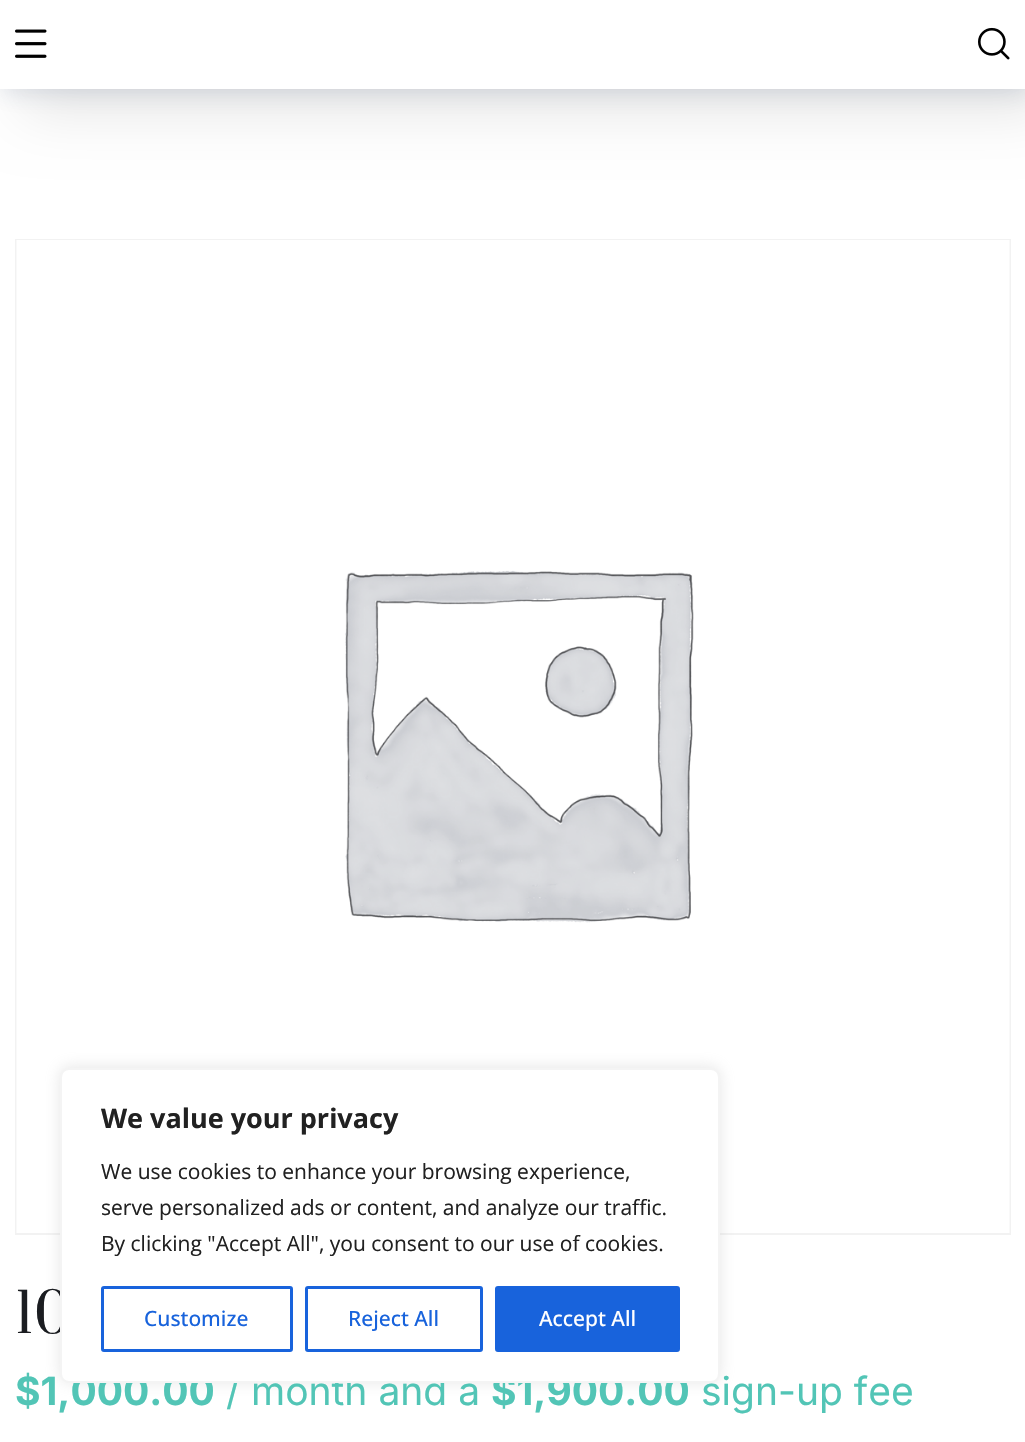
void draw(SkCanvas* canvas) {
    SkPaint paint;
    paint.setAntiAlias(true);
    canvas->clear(0xFFFFFFFF);
    paint.setStyle(SkPaint::kStroke_Style);
    paint.setStrokeWidth(2);
    paint.setColor(0xFFF2F2F2);
    canvas->drawRect(SkRect::MakeXYWH(16, 240, 994, 994), paint);
    canvas->drawImageRect(SkImages::DeferredFromEncodedData(SkData::MakeFromFileName("img3.png")), SkRect::MakeXYWH(16, 240, 994, 993), SkSamplingOptions());
    paint.setStyle(SkPaint::kFill_Style);
    paint.setColor(0x4DACABAB);
    paint.setMaskFilter(SkMaskFilter::MakeBlur(kNormal_SkBlurStyle, 7.5f));
    canvas->drawRoundRect(SkRect::MakeXYWH(60, 1067, 660, 315), 9, 9, paint);
    paint.setMaskFilter(nullptr);
    SkFont font1(fontMgr->matchFamilyStyle("Prata", SkFontStyle::Normal()), 54);
    font1.setSubpixel(true);
    paint.setColor(0xFF1B1D21);
    canvas->drawString("10", 15, 1333, font1, paint);
    SkFont font2(fontMgr->matchFamilyStyle("Inter", SkFontStyle::Bold()), 39);
    font2.setSubpixel(true);
    paint.setColor(0xFF52C5B6);
    canvas->drawString("$1,000.00", 15, 1405, font2, paint);
    SkFont font3(fontMgr->matchFamilyStyle("Inter", SkFontStyle::Normal()), 39);
    font3.setSubpixel(true);
    canvas->drawString("/ month and a", 226, 1405, font3, paint);
    canvas->drawString("$1,900.00", 491, 1405, font2, paint);
    canvas->drawString("sign-up fee", 701, 1405, font3, paint);
    paint.setColor(0xFFFFFFFF);
    canvas->drawRoundRect(SkRect::MakeXYWH(61, 1069, 658, 313), 8, 8, paint);
    paint.setStyle(SkPaint::kStroke_Style);
    paint.setColor(0xFFF4F4F4);
    canvas->drawRoundRect(SkRect::MakeXYWH(61, 1069, 658, 313), 8, 8, paint);
    SkFont font4(fontMgr->matchFamilyStyle("Open Sans", SkFontStyle::Bold()), 27);
    font4.setSubpixel(true);
    paint.setStyle(SkPaint::kFill_Style);
    paint.setColor(0xFF212121);
    canvas->drawString("We value your privacy", 101, 1128, font4, paint);
    SkFont font5(fontMgr->matchFamilyStyle("Open Sans", SkFontStyle::Normal()), 21);
    font5.setSubpixel(true);
    canvas->drawString("We use cookies to enhance your browsing experience,", 101, 1179, font5, paint);
    canvas->drawString("serve personalized ads or content, and analyze our traffic.", 101, 1215, font5, paint);
    canvas->drawString("By clicking \"Accept All\", you consent to our use of cookies.", 101, 1251, font5, paint);
    paint.setStyle(SkPaint::kStroke_Style);
    paint.setStrokeWidth(3);
    paint.setColor(0xFF1863DC);
    canvas->drawRoundRect(SkRect::MakeXYWH(102.5f, 1287.5f, 189, 63), 1.5f, 1.5f, paint);
    SkFont font6(fontMgr->matchFamilyStyle("Open Sans", SkFontStyle(500, SkFontStyle::kNormal_Width, SkFontStyle::kUpright_Slant)), 21);
    font6.setSubpixel(true);
    paint.setStyle(SkPaint::kFill_Style);
    canvas->drawString("Customize", 144, 1326, font6, paint);
    paint.setStyle(SkPaint::kStroke_Style);
    canvas->drawRoundRect(SkRect::MakeXYWH(306.5f, 1287.5f, 175, 63), 1.5f, 1.5f, paint);
    paint.setStyle(SkPaint::kFill_Style);
    canvas->drawString("Reject All", 348, 1326, font6, paint);
    canvas->drawRoundRect(SkRect::MakeXYWH(496.5f, 1287.5f, 182, 63), 1.5f, 1.5f, paint);
    paint.setStyle(SkPaint::kStroke_Style);
    canvas->drawRoundRect(SkRect::MakeXYWH(496.5f, 1287.5f, 182, 63), 1.5f, 1.5f, paint);
    paint.setStyle(SkPaint::kFill_Style);
    paint.setColor(0xFFFFFFFF);
    canvas->drawString("Accept All", 539, 1326, font6, paint);
    paint.setColor(0x262A4371);
    paint.setMaskFilter(SkMaskFilter::MakeBlur(kNormal_SkBlurStyle, 11));
    canvas->drawRect(SkRect::MakeXYWH(3, 3, 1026, 89), paint);
    paint.setMaskFilter(nullptr);
    paint.setColor(0xFFFFFFFF);
    canvas->drawRect(SkRect::MakeXYWH(0, 0, 1025, 89), paint);
    canvas->save();
    canvas->clipPath(SkPathBuilder(SkPathFillType::kEvenOdd).moveTo(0, 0).lineTo(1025, 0).lineTo(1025, 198).lineTo(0, 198).close().moveTo(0, 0).lineTo(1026, 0).lineTo(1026, 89).lineTo(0, 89).close().detach(), true);
    paint.setColor(0x1A000000);
    paint.setMaskFilter(SkMaskFilter::MakeBlur(kNormal_SkBlurStyle, 28.5f));
    canvas->drawRect(SkRect::MakeXYWH(23, 23, 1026, 88), paint);
    paint.setMaskFilter(nullptr);
    canvas->restore();
    canvas->drawImageRect(SkImages::DeferredFromEncodedData(SkData::MakeFromFileName("img1.png")), SkRect::MakeXYWH(15, 29, 32, 29), SkSamplingOptions());
    canvas->drawImageRect(SkImages::DeferredFromEncodedData(SkData::MakeFromFileName("img2.png")), SkRect::MakeXYWH(978, 27, 32, 33), SkSamplingOptions());
}
